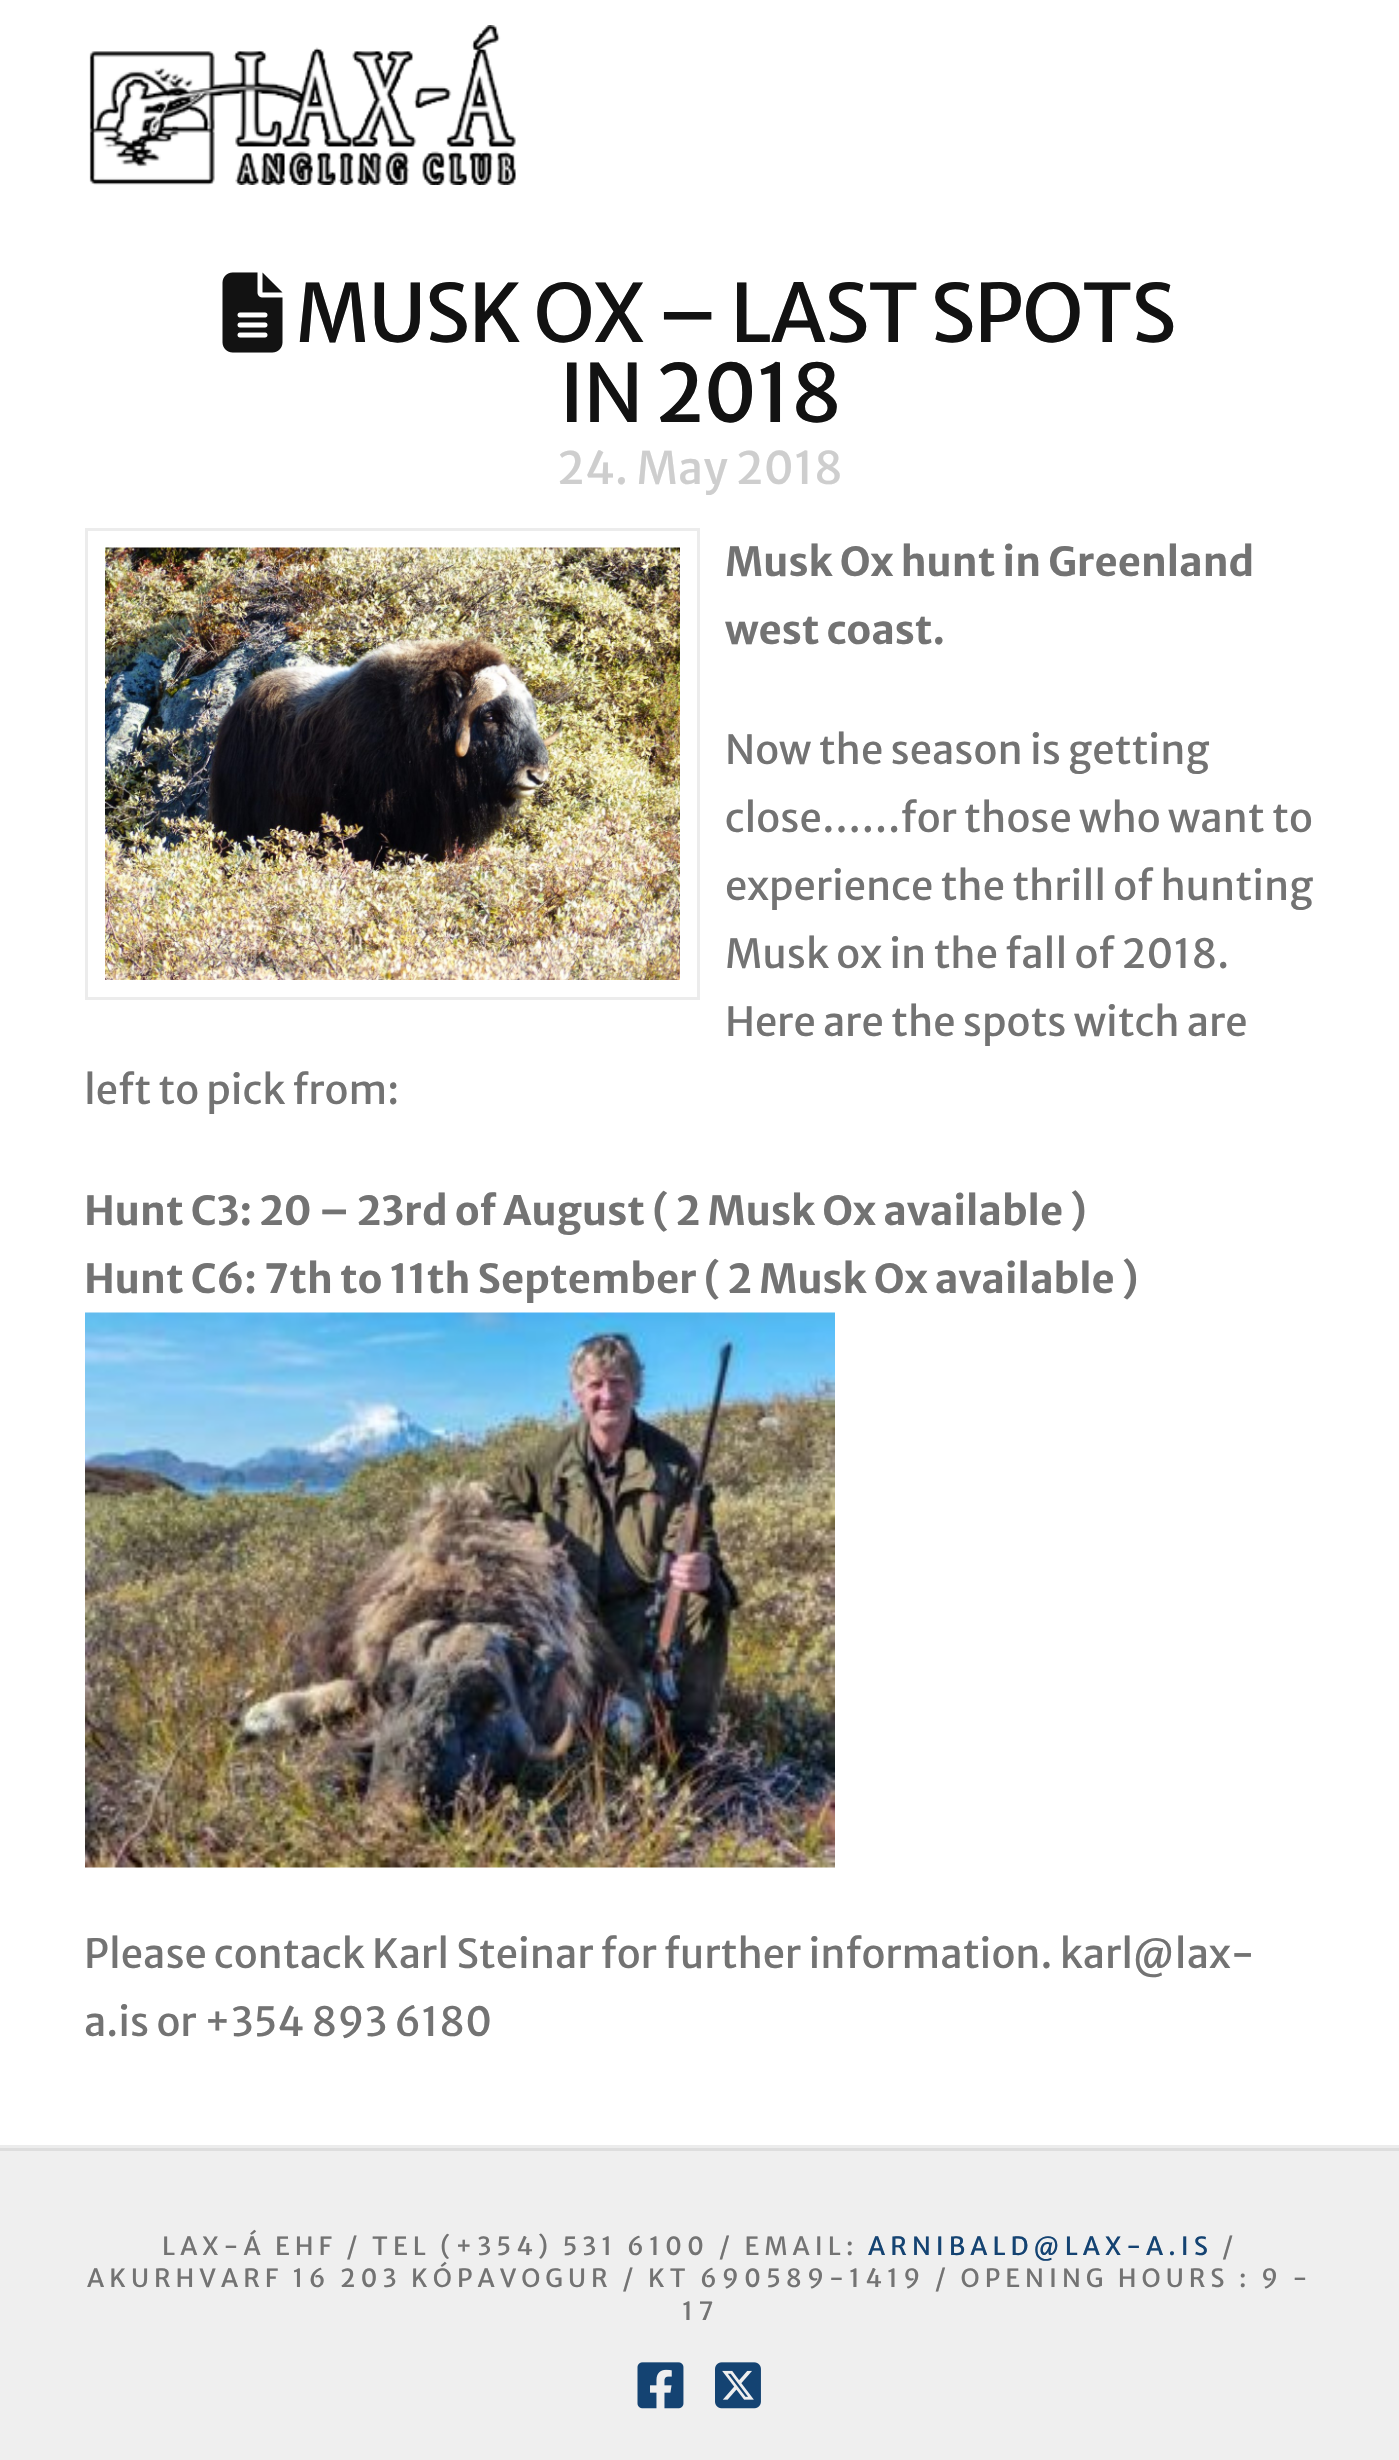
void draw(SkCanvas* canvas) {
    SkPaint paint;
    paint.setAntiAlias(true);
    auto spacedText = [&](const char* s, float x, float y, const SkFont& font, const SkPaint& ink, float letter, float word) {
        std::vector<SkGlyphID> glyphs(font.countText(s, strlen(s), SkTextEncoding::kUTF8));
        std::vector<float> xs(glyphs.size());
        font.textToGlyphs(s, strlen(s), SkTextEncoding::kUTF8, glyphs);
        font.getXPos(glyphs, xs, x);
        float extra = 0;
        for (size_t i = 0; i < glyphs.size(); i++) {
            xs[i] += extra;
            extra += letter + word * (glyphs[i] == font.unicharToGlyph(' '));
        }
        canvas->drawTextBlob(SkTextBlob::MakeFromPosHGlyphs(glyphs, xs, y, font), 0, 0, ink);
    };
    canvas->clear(0xFFFFFFFF);
    canvas->drawImageRect(SkImages::DeferredFromEncodedData(SkData::MakeFromFileName("img1.png")), SkRect::MakeXYWH(89, 25, 427, 160), SkSamplingOptions());
    paint.setColor(0xFFECECEC);
    canvas->drawRect(SkRect::MakeXYWH(0, 2145, 1399, 3), paint);
    canvas->drawImageRect(SkImages::DeferredFromEncodedData(SkData::MakeFromFileName("img2.png")), SkRect::MakeXYWH(222, 272, 61, 81), SkSamplingOptions());
    SkFont font1(fontMgr->matchFamilyStyle("Merriweather Sans", SkFontStyle::Normal()), 80);
    font1.setSubpixel(true);
    paint.setColor(0xFF121212);
    spacedText("MUSK OX – LAST SPOTS", 295, 342, font1, paint, -1.4f, 0);
    spacedText("IN 2018", 559, 422, font1, paint, -1.4f, 0);
    SkFont font2(fontMgr->matchFamilyStyle("Merriweather Sans", SkFontStyle::Normal()), 44.75f);
    font2.setSubpixel(true);
    paint.setColor(0xFFCECECE);
    canvas->drawString("24. May 2018", 557, 484, font2, paint);
    paint.setStyle(SkPaint::kStroke_Style);
    paint.setStrokeWidth(3);
    paint.setColor(0xFFECECEC);
    canvas->drawRect(SkRect::MakeXYWH(86.5f, 529.5f, 612, 469), paint);
    canvas->drawImageRect(SkImages::DeferredFromEncodedData(SkData::MakeFromFileName("img3.png")), SkRect::MakeXYWH(105, 547, 575, 433), SkSamplingOptions());
    SkFont font3(fontMgr->matchFamilyStyle("Merriweather Sans", SkFontStyle::Bold()), 40);
    font3.setSubpixel(true);
    paint.setStyle(SkPaint::kFill_Style);
    paint.setColor(0xFF737373);
    canvas->drawString("Musk Ox hunt in Greenland", 725, 576, font3, paint);
    canvas->drawString("west coast.", 725, 644, font3, paint);
    SkFont font4(fontMgr->matchFamilyStyle("Merriweather Sans", SkFontStyle::Normal()), 40);
    font4.setSubpixel(true);
    canvas->drawString("Now the season is getting", 725, 764, font4, paint);
    canvas->drawString("close……for those who want to", 725, 832, font4, paint);
    canvas->drawString("experience the thrill of hunting", 725, 900, font4, paint);
    canvas->drawString("Musk ox in the fall of 2018.", 725, 968, font4, paint);
    canvas->drawString("Here are the spots witch are", 725, 1036, font4, paint);
    canvas->drawString("left to pick from:", 84, 1104, font4, paint);
    canvas->drawString("Hunt C3: 20 – 23rd of August ( 2 Musk Ox available )", 84, 1225, font3, paint);
    canvas->drawString("Hunt C6: 7th to 11th September ( 2 Musk Ox available )", 84, 1293, font3, paint);
    canvas->drawImageRect(SkImages::DeferredFromEncodedData(SkData::MakeFromFileName("img4.png")), SkRect::MakeXYWH(85, 1312, 750, 556), SkSamplingOptions());
    canvas->drawString("Please contack Karl Steinar for further information. karl@lax-", 84, 1968, font4, paint);
    canvas->drawString("a.is or +354 893 6180", 84, 2036, font4, paint);
    paint.setColor(0xFFEFEFEF);
    canvas->drawRect(SkRect::MakeXYWH(0, 2151, 1399, 309), paint);
    paint.setColor(0xFFDDDDDD);
    canvas->drawRect(SkRect::MakeXYWH(0, 2148, 1399, 3), paint);
    SkFont font5(fontMgr->matchFamilyStyle("Merriweather Sans", SkFontStyle::Normal()), 25);
    font5.setSubpixel(true);
    paint.setColor(0xFF737373);
    spacedText("LAX-Á EHF / TEL (+354) 531 6100 / EMAIL:", 162, 2255, font5, paint, 5, 0);
    paint.setColor(0xFF144372);
    spacedText("ARNIBALD@LAX-A.IS", 868, 2255, font5, paint, 5, 0);
    paint.setColor(0xFF737373);
    spacedText("/", 1222, 2255, font5, paint, 5, 0);
    spacedText("AKURHVARF 16 203 KÓPAVOGUR / KT 690589-1419 / OPENING HOURS : 9 -", 87, 2287, font5, paint, 5, 0);
    spacedText("17", 682, 2320, font5, paint, 5, 0);
    canvas->drawImageRect(SkImages::DeferredFromEncodedData(SkData::MakeFromFileName("img5.png")), SkRect::MakeXYWH(637, 2362, 47, 47), SkSamplingOptions());
    canvas->drawImageRect(SkImages::DeferredFromEncodedData(SkData::MakeFromFileName("img6.png")), SkRect::MakeXYWH(715, 2362, 46, 47), SkSamplingOptions());
}
